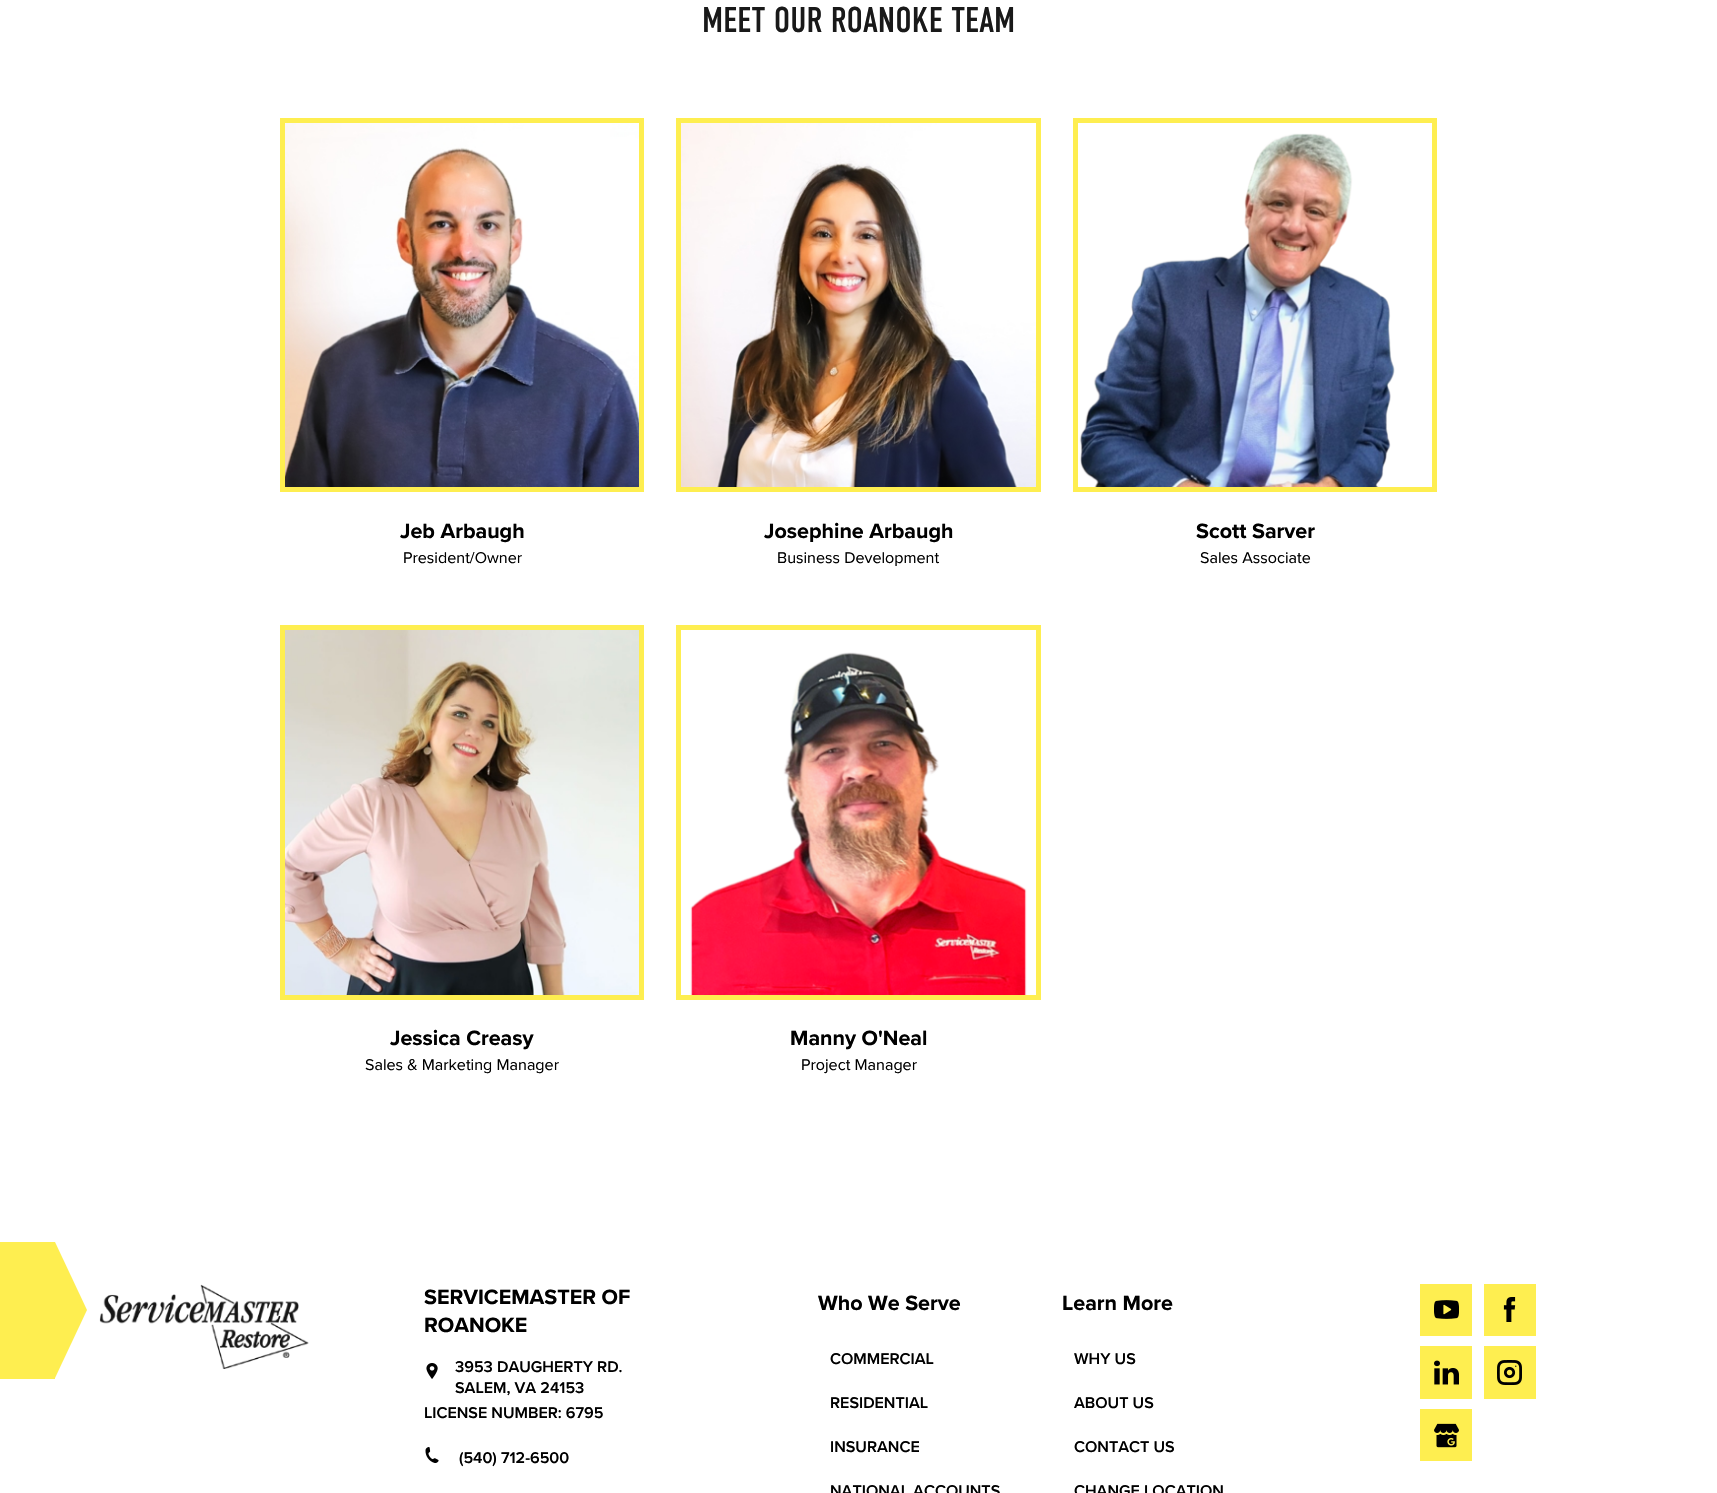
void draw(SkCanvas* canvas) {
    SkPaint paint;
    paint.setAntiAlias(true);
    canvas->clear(0xFFFFFFFF);
    SkFont font1(fontMgr->matchFamilyStyle("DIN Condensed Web", SkFontStyle::Normal()), 35.75f);
    font1.setSubpixel(true);
    paint.setColor(0xFF191919);
    canvas->drawString("MEET OUR ROANOKE TEAM", 702, 32, font1, paint);
    paint.setColor(0xFFFEEE50);
    canvas->drawRect(SkRect::MakeXYWH(280, 118, 364, 374), paint);
    canvas->drawImageRect(SkImages::DeferredFromEncodedData(SkData::MakeFromFileName("img1.png")), SkRect::MakeXYWH(285, 123, 354, 364), SkSamplingOptions());
    SkFont font2(fontMgr->matchFamilyStyle("Proxima Nova", SkFontStyle::Bold()), 21.5f);
    font2.setSubpixel(true);
    paint.setColor(0xFF000000);
    canvas->drawString("Jeb Arbaugh", 400, 538, font2, paint);
    SkFont font3(fontMgr->matchFamilyStyle("Proxima Nova", SkFontStyle::Normal()), 16.1f);
    font3.setSubpixel(true);
    canvas->drawString("President/Owner", 403, 563, font3, paint);
    paint.setColor(0xFFFEEE50);
    canvas->drawRect(SkRect::MakeXYWH(676, 118, 365, 374), paint);
    canvas->drawImageRect(SkImages::DeferredFromEncodedData(SkData::MakeFromFileName("img2.png")), SkRect::MakeXYWH(681, 123, 355, 364), SkSamplingOptions());
    paint.setColor(0xFF000000);
    canvas->drawString("Josephine Arbaugh", 764, 538, font2, paint);
    canvas->drawString("Business Development", 777, 563, font3, paint);
    paint.setColor(0xFFFEEE50);
    canvas->drawRect(SkRect::MakeXYWH(1073, 118, 364, 374), paint);
    canvas->drawImageRect(SkImages::DeferredFromEncodedData(SkData::MakeFromFileName("img3.png")), SkRect::MakeXYWH(1078, 123, 354, 364), SkSamplingOptions());
    paint.setColor(0xFF000000);
    canvas->drawString("Scott Sarver", 1196, 538, font2, paint);
    canvas->drawString("Sales Associate", 1200, 563, font3, paint);
    paint.setColor(0xFFFEEE50);
    canvas->drawRect(SkRect::MakeXYWH(280, 625, 364, 375), paint);
    canvas->drawImageRect(SkImages::DeferredFromEncodedData(SkData::MakeFromFileName("img4.png")), SkRect::MakeXYWH(285, 630, 354, 365), SkSamplingOptions());
    paint.setColor(0xFF000000);
    canvas->drawString("Jessica Creasy", 390, 1045, font2, paint);
    canvas->drawString("Sales & Marketing Manager", 365, 1070, font3, paint);
    paint.setColor(0xFFFEEE50);
    canvas->drawRect(SkRect::MakeXYWH(676, 625, 365, 375), paint);
    canvas->drawImageRect(SkImages::DeferredFromEncodedData(SkData::MakeFromFileName("img5.png")), SkRect::MakeXYWH(681, 630, 355, 365), SkSamplingOptions());
    paint.setColor(0xFF000000);
    canvas->drawString("Manny O'Neal", 790, 1045, font2, paint);
    canvas->drawString("Project Manager", 801, 1070, font3, paint);
    paint.setColor(0xFFFEEE50);
    canvas->drawRect(SkRect::MakeXYWH(0, 1242, 55, 137), paint);
    canvas->drawPath(SkPathBuilder().moveTo(55, 1378).lineTo(55, 1242).lineTo(87, 1310).close().detach(), paint);
    canvas->drawImageRect(SkImages::DeferredFromEncodedData(SkData::MakeFromFileName("img6.png")), SkRect::MakeXYWH(99, 1284, 210, 85), SkSamplingOptions());
    paint.setColor(0xFF000000);
    canvas->drawString("SERVICEMASTER OF", 424, 1304, font2, paint);
    canvas->drawString("ROANOKE", 424, 1332, font2, paint);
    canvas->drawImageRect(SkImages::DeferredFromEncodedData(SkData::MakeFromFileName("img7.png")), SkRect::MakeXYWH(426, 1363, 12, 16), SkSamplingOptions());
    SkFont font4(fontMgr->matchFamilyStyle("Proxima Nova", SkFontStyle(600, SkFontStyle::kNormal_Width, SkFontStyle::kUpright_Slant)), 16.1f);
    font4.setSubpixel(true);
    canvas->drawString("3953 DAUGHERTY RD.", 455, 1372, font4, paint);
    canvas->drawString("SALEM, VA 24153", 455, 1393, font4, paint);
    canvas->drawString("LICENSE NUMBER: 6795", 424, 1418, font4, paint);
    canvas->drawImageRect(SkImages::DeferredFromEncodedData(SkData::MakeFromFileName("img8.png")), SkRect::MakeXYWH(425, 1447, 14, 16), SkSamplingOptions());
    canvas->drawString("(540) 712-6500", 459, 1463, font4, paint);
    canvas->drawString("Who We Serve", 818, 1310, font2, paint);
    canvas->drawString("COMMERCIAL", 830, 1364, font4, paint);
    canvas->drawString("RESIDENTIAL", 830, 1408, font4, paint);
    canvas->drawString("INSURANCE", 830, 1452, font4, paint);
    canvas->drawString("NATIONAL ACCOUNTS", 830, 1496, font4, paint);
    canvas->drawString("Learn More", 1062, 1310, font2, paint);
    canvas->drawString("WHY US", 1074, 1364, font4, paint);
    canvas->drawString("ABOUT US", 1074, 1408, font4, paint);
    canvas->drawString("CONTACT US", 1074, 1452, font4, paint);
    canvas->drawString("CHANGE LOCATION", 1074, 1496, font4, paint);
    paint.setColor(0xFFFEEE50);
    canvas->drawRect(SkRect::MakeXYWH(1420, 1284, 52, 52), paint);
    canvas->drawImageRect(SkImages::DeferredFromEncodedData(SkData::MakeFromFileName("img9.png")), SkRect::MakeXYWH(1434, 1300, 25, 19), SkSamplingOptions());
    canvas->drawRect(SkRect::MakeXYWH(1484, 1284, 52, 52), paint);
    canvas->drawImageRect(SkImages::DeferredFromEncodedData(SkData::MakeFromFileName("img10.png")), SkRect::MakeXYWH(1503, 1297, 13, 25), SkSamplingOptions());
    canvas->drawRect(SkRect::MakeXYWH(1420, 1346, 52, 53), paint);
    canvas->drawImageRect(SkImages::DeferredFromEncodedData(SkData::MakeFromFileName("img11.png")), SkRect::MakeXYWH(1434, 1360, 25, 25), SkSamplingOptions());
    canvas->drawRect(SkRect::MakeXYWH(1484, 1346, 52, 53), paint);
    canvas->drawImageRect(SkImages::DeferredFromEncodedData(SkData::MakeFromFileName("img12.png")), SkRect::MakeXYWH(1497, 1360, 25, 25), SkSamplingOptions());
    canvas->drawRect(SkRect::MakeXYWH(1420, 1409, 52, 52), paint);
    canvas->drawImageRect(SkImages::DeferredFromEncodedData(SkData::MakeFromFileName("img13.png")), SkRect::MakeXYWH(1434, 1423, 25, 25), SkSamplingOptions());
}
